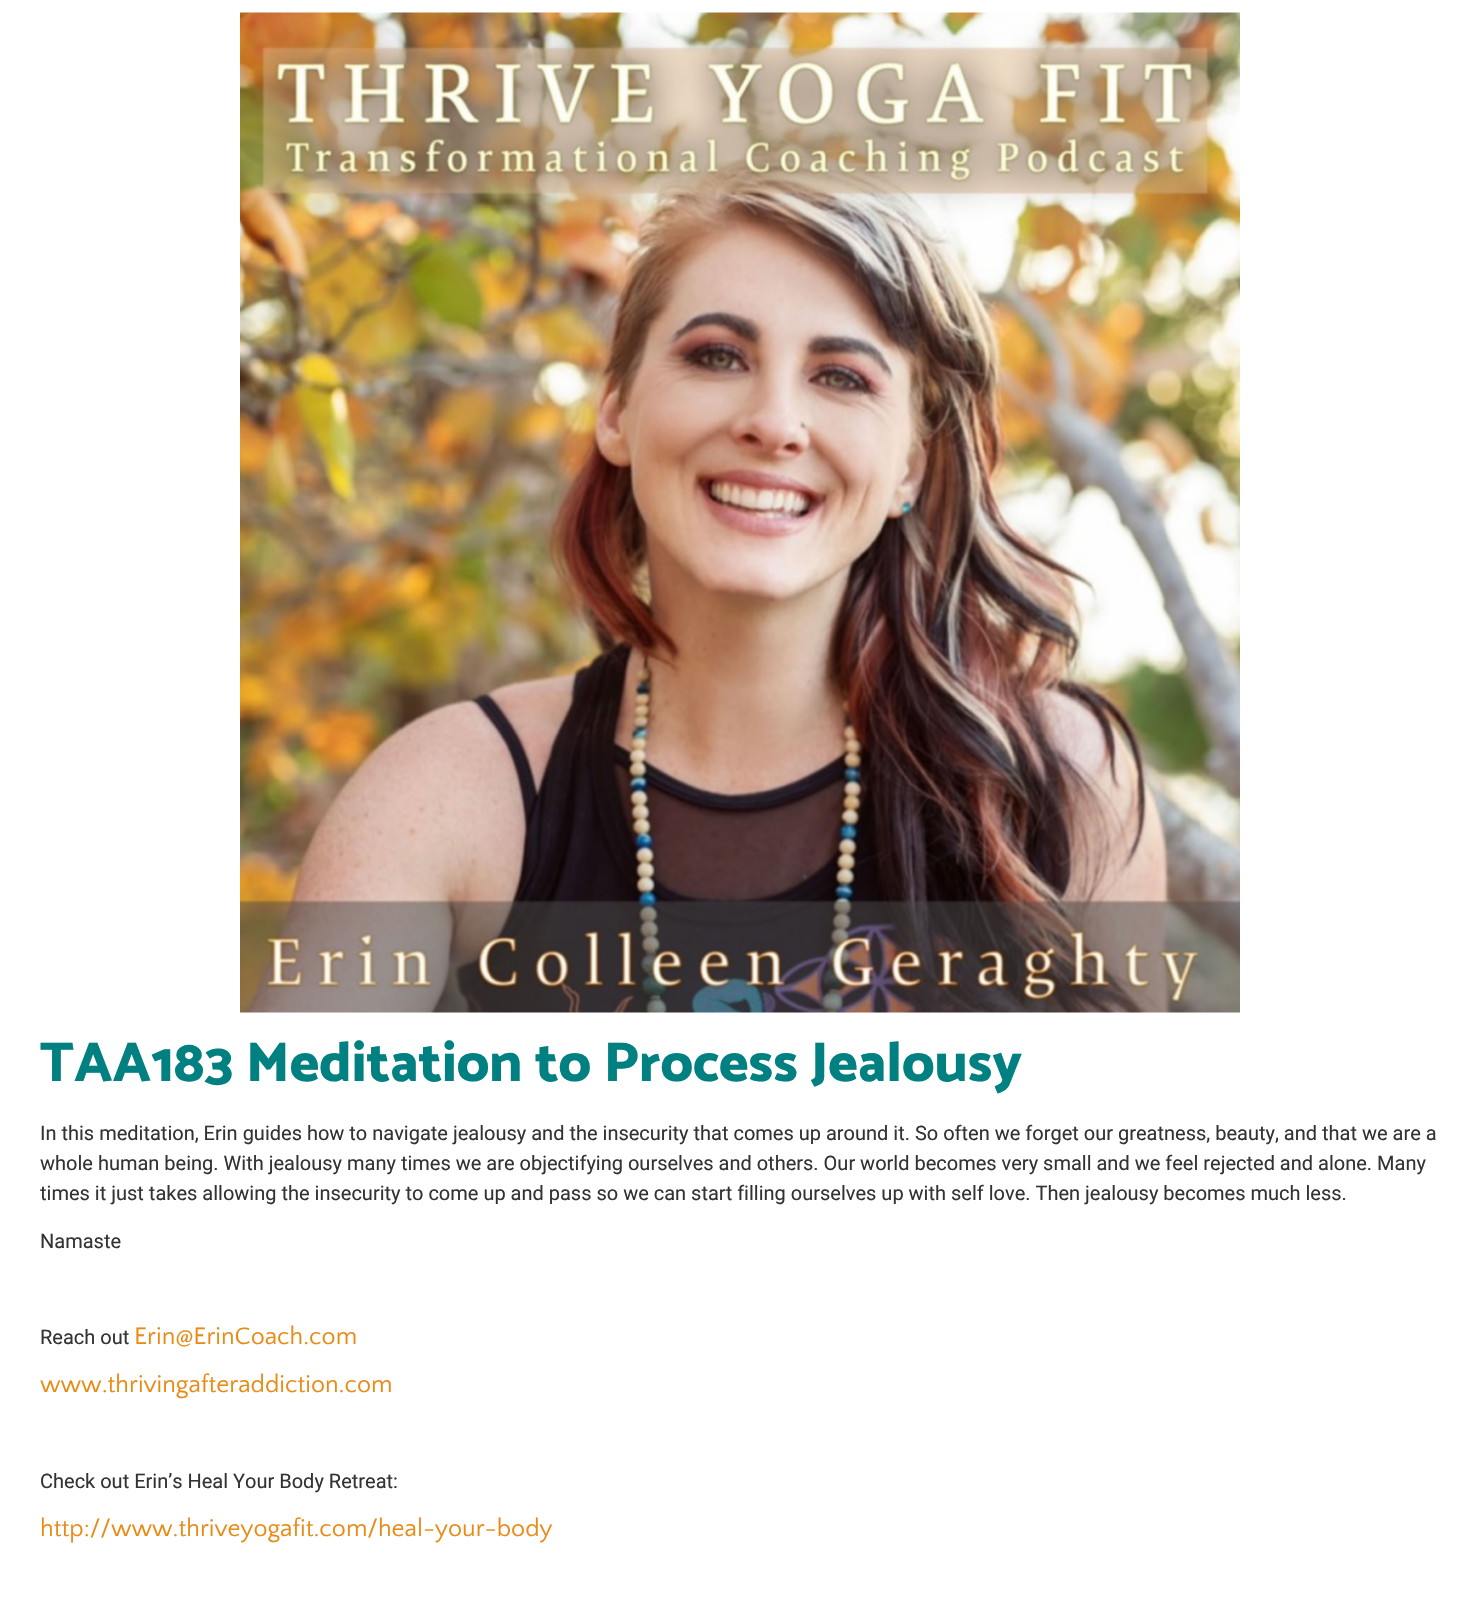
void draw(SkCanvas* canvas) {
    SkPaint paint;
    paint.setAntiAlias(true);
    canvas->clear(0xFFFFFFFF);
    canvas->drawImageRect(SkImages::DeferredFromEncodedData(SkData::MakeFromFileName("img1.png")), SkRect::MakeXYWH(240, 12, 1000, 1001), SkSamplingOptions());
    SkFont font1(fontMgr->matchFamilyStyle("Catamaran", SkFontStyle(800, SkFontStyle::kNormal_Width, SkFontStyle::kUpright_Slant)), 56.25f);
    font1.setSubpixel(true);
    paint.setColor(0xFF008080);
    canvas->drawString("TAA183 Meditation to Process Jealousy", 40, 1081, font1, paint);
    SkFont font2(fontMgr->matchFamilyStyle("Roboto", SkFontStyle::Normal()), 20);
    font2.setSubpixel(true);
    paint.setColor(0xFF333333);
    canvas->drawString("In this meditation, Erin guides how to navigate jealousy and the insecurity that comes up around it. So often we forget our greatness, beauty, and that we are a", 40, 1140, font2, paint);
    canvas->drawString("whole human being. With jealousy many times we are objectifying ourselves and others. Our world becomes very small and we feel rejected and alone. Many", 40, 1170, font2, paint);
    canvas->drawString("times it just takes allowing the insecurity to come up and pass so we can start filling ourselves up with self love. Then jealousy becomes much less.", 40, 1200, font2, paint);
    canvas->drawString("Namaste", 40, 1248, font2, paint);
    canvas->drawString("Reach out", 40, 1344, font2, paint);
    SkFont font3(fontMgr->matchFamilyStyle("Quattrocento Sans", SkFontStyle::Normal()), 25);
    font3.setSubpixel(true);
    paint.setColor(0xFFE98A15);
    canvas->drawString("Erin@ErinCoach.com", 134, 1344, font3, paint);
    canvas->drawString("www.thrivingafteraddiction.com", 40, 1392, font3, paint);
    paint.setColor(0xFF333333);
    canvas->drawString("Check out Erin’s Heal Your Body Retreat:", 40, 1488, font2, paint);
    paint.setColor(0xFFE98A15);
    canvas->drawString("http://www.thriveyogafit.com/heal-your-body", 40, 1536, font3, paint);
}
